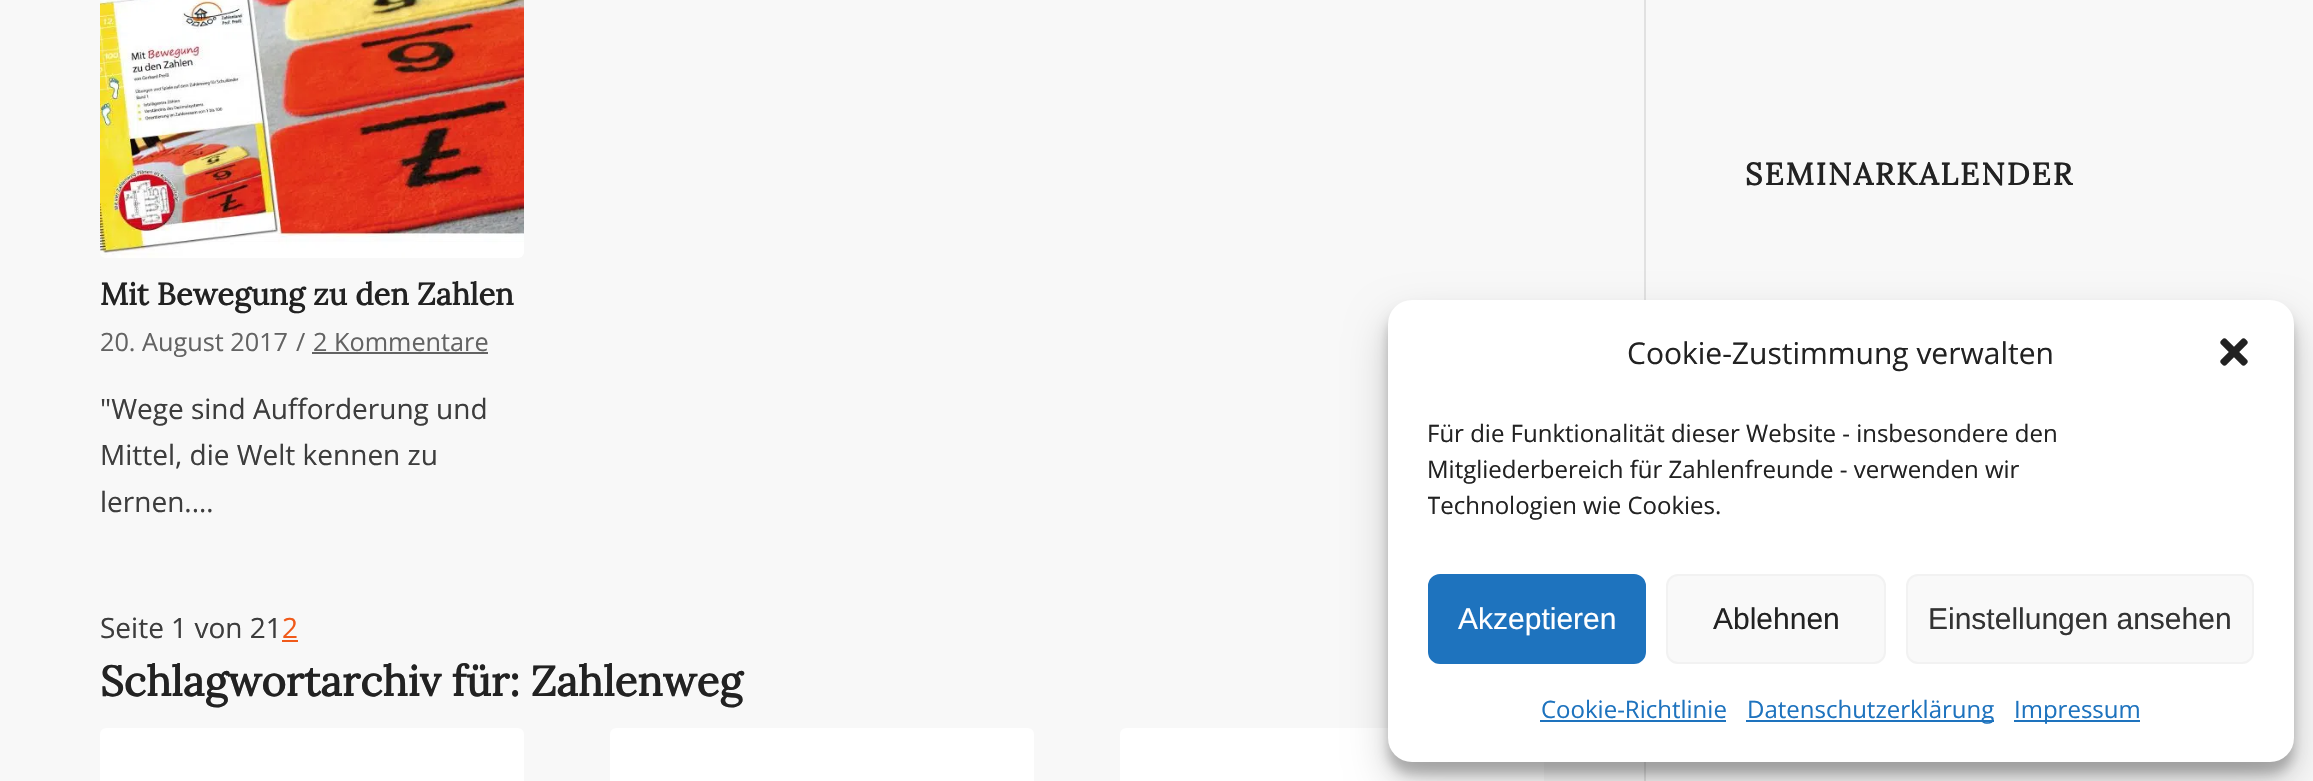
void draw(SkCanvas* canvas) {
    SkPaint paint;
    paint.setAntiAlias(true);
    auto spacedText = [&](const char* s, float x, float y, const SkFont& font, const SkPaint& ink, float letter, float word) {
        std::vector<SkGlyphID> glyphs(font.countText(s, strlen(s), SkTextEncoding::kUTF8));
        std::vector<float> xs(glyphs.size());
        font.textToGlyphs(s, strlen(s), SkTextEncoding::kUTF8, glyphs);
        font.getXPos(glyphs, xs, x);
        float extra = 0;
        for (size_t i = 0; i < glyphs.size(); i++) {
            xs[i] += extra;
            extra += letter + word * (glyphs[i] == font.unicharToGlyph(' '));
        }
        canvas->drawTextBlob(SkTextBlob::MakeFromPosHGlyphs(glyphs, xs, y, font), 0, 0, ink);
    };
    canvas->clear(0xFFF8F8F8);
    SkFont font1(fontMgr->matchFamilyStyle("Lora", SkFontStyle::Bold()), 30.75f);
    font1.setSubpixel(true);
    paint.setColor(0xFF222222);
    spacedText("SEMINARKALENDER", 1745, 185, font1, paint, 2, 0);
    paint.setColor(0xFFE1E1E1);
    canvas->drawRect(SkRect::MakeXYWH(1644, 0, 2, 781), paint);
    paint.setColor(0xFFFFFFFF);
    canvas->drawRoundRect(SkRect::MakeXYWH(100, -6, 424, 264), 6, 6, paint);
    canvas->drawImageRect(SkImages::DeferredFromEncodedData(SkData::MakeFromFileName("img1.png")), SkRect::MakeXYWH(100, 0, 424, 258), SkSamplingOptions());
    paint.setColor(0xFF222222);
    canvas->drawString("Mit Bewegung zu den Zahlen", 100, 305, font1, paint);
    SkFont font2(fontMgr->matchFamilyStyle("Open Sans", SkFontStyle::Normal()), 25.25f);
    font2.setSubpixel(true);
    paint.setColor(0xFF636363);
    canvas->drawString("20. August 2017", 100, 351, font2, paint);
    canvas->drawString("/", 296, 351, font2, paint);
    canvas->drawString("2 Kommentare", 313, 351, font2, paint);
    canvas->drawRect(SkRect::MakeXYWH(312, 352, 176, 2), paint);
    SkFont font3(fontMgr->matchFamilyStyle("Open Sans", SkFontStyle::Normal()), 28);
    font3.setSubpixel(true);
    paint.setColor(0xFF3D3D3D);
    canvas->drawString("\"Wege sind Aufforderung und", 100, 419, font3, paint);
    canvas->drawString("Mittel, die Welt kennen zu", 100, 465, font3, paint);
    canvas->drawString("lernen.…", 100, 512, font3, paint);
    canvas->drawString("Seite 1 von 21", 100, 638, font3, paint);
    paint.setColor(0xFFF05A1A);
    canvas->drawString("2", 282, 638, font3, paint);
    canvas->drawRect(SkRect::MakeXYWH(282, 640, 16, 2), paint);
    SkFont font4(fontMgr->matchFamilyStyle("Lora", SkFontStyle::Bold()), 42);
    font4.setSubpixel(true);
    paint.setColor(0xFF222222);
    canvas->drawString("Schlagwortarchiv für: Zahlenweg", 100, 696, font4, paint);
    paint.setColor(0xFFFFFFFF);
    canvas->drawRoundRect(SkRect::MakeXYWH(100, 728, 424, 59), 6, 6, paint);
    canvas->drawRoundRect(SkRect::MakeXYWH(610, 728, 424, 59), 6, 6, paint);
    canvas->drawRoundRect(SkRect::MakeXYWH(1120, 728, 424, 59), 6, 6, paint);
    paint.setColor(0x3B000000);
    paint.setMaskFilter(SkMaskFilter::MakeBlur(kNormal_SkBlurStyle, 6));
    canvas->drawRoundRect(SkRect::MakeXYWH(1388, 312, 906, 462), 24, 24, paint);
    paint.setMaskFilter(nullptr);
    paint.setColor(0x30000000);
    paint.setMaskFilter(SkMaskFilter::MakeBlur(kNormal_SkBlurStyle, 20));
    canvas->drawRoundRect(SkRect::MakeXYWH(1388, 320, 906, 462), 24, 24, paint);
    paint.setMaskFilter(nullptr);
    paint.setColor(0xFFFFFFFF);
    canvas->drawRoundRect(SkRect::MakeXYWH(1388, 300, 906, 462), 24, 24, paint);
    SkFont font5(fontMgr->matchFamilyStyle("Open Sans", SkFontStyle::Normal()), 30);
    font5.setSubpixel(true);
    paint.setColor(0xFF222222);
    canvas->drawString("Cookie-Zustimmung verwalten", 1627, 364, font5, paint);
    canvas->drawImageRect(SkImages::DeferredFromEncodedData(SkData::MakeFromFileName("img2.png")), SkRect::MakeXYWH(2220, 338, 28, 28), SkSamplingOptions());
    SkFont font6(fontMgr->matchFamilyStyle("Open Sans", SkFontStyle::Normal()), 24);
    font6.setSubpixel(true);
    canvas->drawString("Für die Funktionalität dieser Website - insbesondere den", 1427, 442, font6, paint);
    canvas->drawString("Mitgliederbereich für Zahlenfreunde - verwenden wir", 1427, 478, font6, paint);
    canvas->save();
    canvas->clipRect(SkRect::MakeXYWH(1428, 416, 826, 118));
    canvas->drawString("Technologien wie Cookies.", 1427, 514, font6, paint);
    canvas->restore();
    paint.setColor(0xFF1E73BE);
    canvas->drawRoundRect(SkRect::MakeXYWH(1429, 575, 216, 88), 11, 11, paint);
    paint.setStyle(SkPaint::kStroke_Style);
    paint.setStrokeWidth(2);
    canvas->drawRoundRect(SkRect::MakeXYWH(1429, 575, 216, 88), 11, 11, paint);
    SkFont font7(fontMgr->matchFamilyStyle("Liberation Sans", SkFontStyle::Normal()), 30);
    font7.setSubpixel(true);
    paint.setStyle(SkPaint::kFill_Style);
    paint.setColor(0xFFFFFFFF);
    canvas->drawString("Akzeptieren", 1458, 629, font7, paint);
    paint.setColor(0xFFF9F9F9);
    canvas->drawRoundRect(SkRect::MakeXYWH(1667, 575, 218, 88), 11, 11, paint);
    paint.setStyle(SkPaint::kStroke_Style);
    paint.setColor(0xFFF2F2F2);
    canvas->drawRoundRect(SkRect::MakeXYWH(1667, 575, 218, 88), 11, 11, paint);
    paint.setStyle(SkPaint::kFill_Style);
    paint.setColor(0xFF222222);
    canvas->drawString("Ablehnen", 1713, 629, font7, paint);
    paint.setColor(0xFFF9F9F9);
    canvas->drawRoundRect(SkRect::MakeXYWH(1907, 575, 346, 88), 11, 11, paint);
    paint.setStyle(SkPaint::kStroke_Style);
    paint.setColor(0xFFF2F2F2);
    canvas->drawRoundRect(SkRect::MakeXYWH(1907, 575, 346, 88), 11, 11, paint);
    paint.setStyle(SkPaint::kFill_Style);
    paint.setColor(0xFF333333);
    canvas->drawString("Einstellungen ansehen", 1928, 629, font7, paint);
    paint.setColor(0xFF1E73BE);
    canvas->drawString("Cookie-Richtlinie", 1541, 718, font6, paint);
    canvas->drawRect(SkRect::MakeXYWH(1540, 720, 186, 2), paint);
    canvas->drawRect(SkRect::MakeXYWH(1746, 720, 248, 2), paint);
    canvas->drawString("Datenschutzerklärung", 1747, 718, font6, paint);
    canvas->drawRect(SkRect::MakeXYWH(2014, 720, 126, 2), paint);
    canvas->drawString("Impressum", 2014, 718, font6, paint);
}
